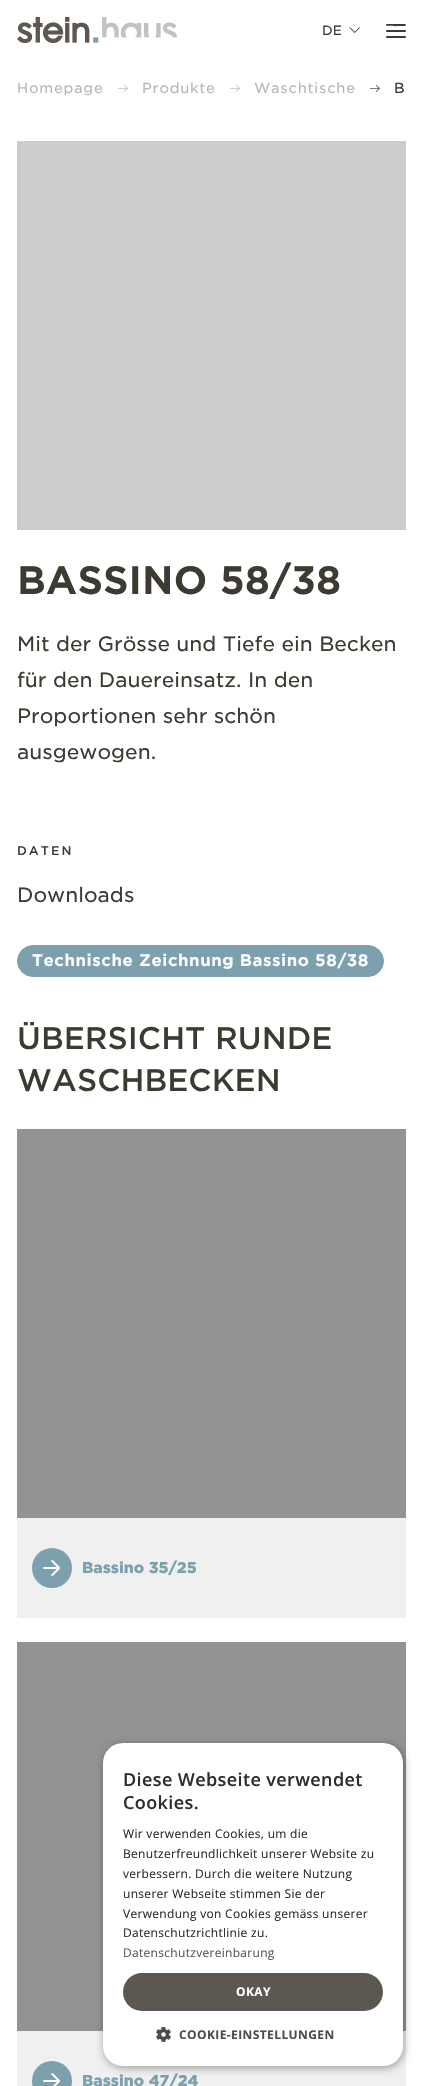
void draw(SkCanvas* canvas) {
    SkPaint paint;
    paint.setAntiAlias(true);
    auto spacedText = [&](const char* s, float x, float y, const SkFont& font, const SkPaint& ink, float letter, float word) {
        std::vector<SkGlyphID> glyphs(font.countText(s, strlen(s), SkTextEncoding::kUTF8));
        std::vector<float> xs(glyphs.size());
        font.textToGlyphs(s, strlen(s), SkTextEncoding::kUTF8, glyphs);
        font.getXPos(glyphs, xs, x);
        float extra = 0;
        for (size_t i = 0; i < glyphs.size(); i++) {
            xs[i] += extra;
            extra += letter + word * (glyphs[i] == font.unicharToGlyph(' '));
        }
        canvas->drawTextBlob(SkTextBlob::MakeFromPosHGlyphs(glyphs, xs, y, font), 0, 0, ink);
    };
    canvas->clear(0xFFFFFFFF);
    canvas->drawImageRect(SkImages::DeferredFromEncodedData(SkData::MakeFromFileName("img1.png")), SkRect::MakeXYWH(17, 16, 160, 28), SkSamplingOptions());
    SkFont font1(fontMgr->matchFamilyStyle("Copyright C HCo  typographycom", SkFontStyle(300, SkFontStyle::kNormal_Width, SkFontStyle::kUpright_Slant)), 13);
    font1.setSubpixel(true);
    paint.setColor(0xFF3D3A32);
    canvas->drawString("DE", 322, 35, font1, paint);
    canvas->drawImageRect(SkImages::DeferredFromEncodedData(SkData::MakeFromFileName("img2.png")), SkRect::MakeXYWH(349, 27, 11, 6), SkSamplingOptions());
    canvas->drawPath(SkPathBuilder().moveTo(405, 26).cubicTo(403, 26, 387, 26.5f, 386.5f, 25.5f).cubicTo(384.5f, 24, 388, 24, 390, 24).lineTo(405.5f, 24).cubicTo(406, 24.5f, 406, 25, 405.5f, 25.5f).close().detach(), paint);
    canvas->drawRoundRect(SkRect::MakeXYWH(386, 30, 20, 2), 1, 1, paint);
    canvas->drawRoundRect(SkRect::MakeXYWH(386, 36, 20, 2), 1, 1, paint);
    SkFont font2(fontMgr->matchFamilyStyle("Copyright C HCo  typographycom", SkFontStyle(300, SkFontStyle::kNormal_Width, SkFontStyle::kUpright_Slant)), 14);
    font2.setSubpixel(true);
    paint.setColor(0xFFB7B7B7);
    spacedText("Homepage", 17, 93, font2, paint, 0.75f, 0);
    canvas->drawImageRect(SkImages::DeferredFromEncodedData(SkData::MakeFromFileName("img3.png")), SkRect::MakeXYWH(118, 85, 10, 7), SkSamplingOptions());
    spacedText("Produkte", 142, 93, font2, paint, 0.75f, 0);
    canvas->drawImageRect(SkImages::DeferredFromEncodedData(SkData::MakeFromFileName("img3.png")), SkRect::MakeXYWH(230, 85, 10, 7), SkSamplingOptions());
    spacedText("Waschtische", 254, 93, font2, paint, 0.75f, 0);
    canvas->drawImageRect(SkImages::DeferredFromEncodedData(SkData::MakeFromFileName("img4.png")), SkRect::MakeXYWH(370, 85, 10, 7), SkSamplingOptions());
    paint.setColor(0xFF3D3A32);
    spacedText("B", 394, 93, font2, paint, 0.75f, 0);
    paint.setColor(0xFFCCCCCC);
    canvas->drawRect(SkRect::MakeXYWH(17, 141, 389, 389), paint);
    SkFont font3(fontMgr->matchFamilyStyle("Copyright C HCo  typographycom", SkFontStyle::Normal()), 38);
    font3.setSubpixel(true);
    paint.setColor(0xFF3D3A32);
    canvas->drawString("BASSINO 58/38", 17, 594, font3, paint);
    SkFont font4(fontMgr->matchFamilyStyle("Copyright C HCo  typographycom", SkFontStyle(300, SkFontStyle::kNormal_Width, SkFontStyle::kUpright_Slant)), 20);
    font4.setSubpixel(true);
    canvas->drawString("Mit der Grösse und Tiefe ein Becken", 17, 651, font4, paint);
    canvas->drawString("für den Dauereinsatz. In den", 17, 687, font4, paint);
    canvas->drawString("Proportionen sehr schön", 17, 723, font4, paint);
    canvas->drawString("ausgewogen.", 17, 759, font4, paint);
    SkFont font5(fontMgr->matchFamilyStyle("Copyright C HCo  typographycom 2", SkFontStyle(300, SkFontStyle::kNormal_Width, SkFontStyle::kUpright_Slant)), 12);
    font5.setSubpixel(true);
    spacedText("DATEN", 17, 855, font5, paint, 2, 0);
    canvas->drawString("Downloads", 17, 902, font4, paint);
    paint.setColor(0xFF7CA0AE);
    canvas->drawRoundRect(SkRect::MakeXYWH(17.5f, 945.5f, 366, 31), 15.5f, 15.5f, paint);
    paint.setStyle(SkPaint::kStroke_Style);
    paint.setStrokeWidth(1);
    canvas->drawRoundRect(SkRect::MakeXYWH(17.5f, 945.5f, 366, 31), 15.5f, 15.5f, paint);
    SkFont font6(fontMgr->matchFamilyStyle("Copyright C HCo  typographycom", SkFontStyle::Normal()), 16);
    font6.setSubpixel(true);
    paint.setStyle(SkPaint::kFill_Style);
    paint.setColor(0xFFFFFFFF);
    spacedText("Technische Zeichnung Bassino 58/38", 32, 966, font6, paint, 0.55f, 0);
    SkFont font7(fontMgr->matchFamilyStyle("Copyright C HCo  typographycom 2", SkFontStyle(300, SkFontStyle::kNormal_Width, SkFontStyle::kUpright_Slant)), 30);
    font7.setSubpixel(true);
    paint.setColor(0xFF3D3A32);
    canvas->drawString("ÜBERSICHT RUNDE", 17, 1049, font7, paint);
    canvas->drawString("WASCHBECKEN", 17, 1091, font7, paint);
    paint.setColor(0xFFF0F0F0);
    canvas->drawRect(SkRect::MakeXYWH(17, 1518, 389, 100), paint);
    paint.setColor(0xFF939393);
    canvas->drawRect(SkRect::MakeXYWH(17, 1129, 389, 389), paint);
    paint.setColor(0xFF7CA0AE);
    canvas->drawCircle(52, 1568, 20, paint);
    canvas->drawImageRect(SkImages::DeferredFromEncodedData(SkData::MakeFromFileName("img5.png")), SkRect::MakeXYWH(43, 1560, 18, 16), SkSamplingOptions());
    SkFont font8(fontMgr->matchFamilyStyle("Copyright C HCo  typographycom 2", SkFontStyle::Normal()), 15);
    font8.setSubpixel(true);
    canvas->drawString("Bassino 35/25", 82, 1573, font8, paint);
    paint.setColor(0xFFF0F0F0);
    canvas->drawRect(SkRect::MakeXYWH(17, 2031, 389, 55), paint);
    paint.setColor(0xFF939393);
    canvas->drawRect(SkRect::MakeXYWH(17, 1642, 389, 389), paint);
    paint.setColor(0xFF7CA0AE);
    canvas->drawCircle(52, 2081, 20, paint);
    canvas->drawImageRect(SkImages::DeferredFromEncodedData(SkData::MakeFromFileName("img6.png")), SkRect::MakeXYWH(43, 2073, 18, 13), SkSamplingOptions());
    canvas->drawString("Bassino 47/24", 82, 2086, font8, paint);
    paint.setColor(0x59000000);
    paint.setMaskFilter(SkMaskFilter::MakeBlur(kNormal_SkBlurStyle, 4));
    canvas->drawRoundRect(SkRect::MakeXYWH(104, 1745, 300, 323), 20, 20, paint);
    paint.setMaskFilter(nullptr);
    paint.setColor(0xFFFFFFFF);
    canvas->drawRoundRect(SkRect::MakeXYWH(103, 1743, 300, 323), 20, 20, paint);
    SkFont font9(fontMgr->matchFamilyStyle("Open Sans", SkFontStyle(600, SkFontStyle::kNormal_Width, SkFontStyle::kUpright_Slant)), 18);
    font9.setSubpixel(true);
    paint.setColor(0xFF2D2D2D);
    spacedText("Diese Webseite verwendet", 123, 1786, font9, paint, 0.4f, 0);
    spacedText("Cookies.", 123, 1809, font9, paint, 0.4f, 0);
    SkFont font10(fontMgr->matchFamilyStyle("Open Sans", SkFontStyle::Normal()), 12);
    font10.setSubpixel(true);
    spacedText("Wir verwenden Cookies, um die", 123, 1838, font10, paint, 0.3f, 0);
    spacedText("Benutzerfreundlichkeit unserer Website zu", 123, 1858, font10, paint, 0.3f, 0);
    spacedText("verbessern. Durch die weitere Nutzung", 123, 1878, font10, paint, 0.3f, 0);
    spacedText("unserer Webseite stimmen Sie der", 123, 1898, font10, paint, 0.3f, 0);
    spacedText("Verwendung von Cookies gemäss unserer", 123, 1918, font10, paint, 0.3f, 0);
    spacedText("Datenschutzrichtlinie zu.", 123, 1937, font10, paint, 0.3f, 0);
    paint.setColor(0xFF5C5750);
    spacedText("Datenschutzvereinbarung", 123, 1957, font10, paint, 0.3f, 0);
    canvas->drawRoundRect(SkRect::MakeXYWH(123, 1973, 260, 38), 19, 19, paint);
    SkFont font11(fontMgr->matchFamilyStyle("Open Sans", SkFontStyle::Bold()), 12);
    font11.setSubpixel(true);
    paint.setColor(0xFFFFFFFF);
    spacedText("OKAY", 236, 1996, font11, paint, 0.4f, 0);
    canvas->drawImageRect(SkImages::DeferredFromEncodedData(SkData::MakeFromFileName("img7.png")), SkRect::MakeXYWH(156, 2027, 15, 15), SkSamplingOptions());
    paint.setColor(0xFF4D4D4D);
    spacedText("COOKIE-EINSTELLUNGEN", 179, 2039, font11, paint, 0.4f, 0);
}
